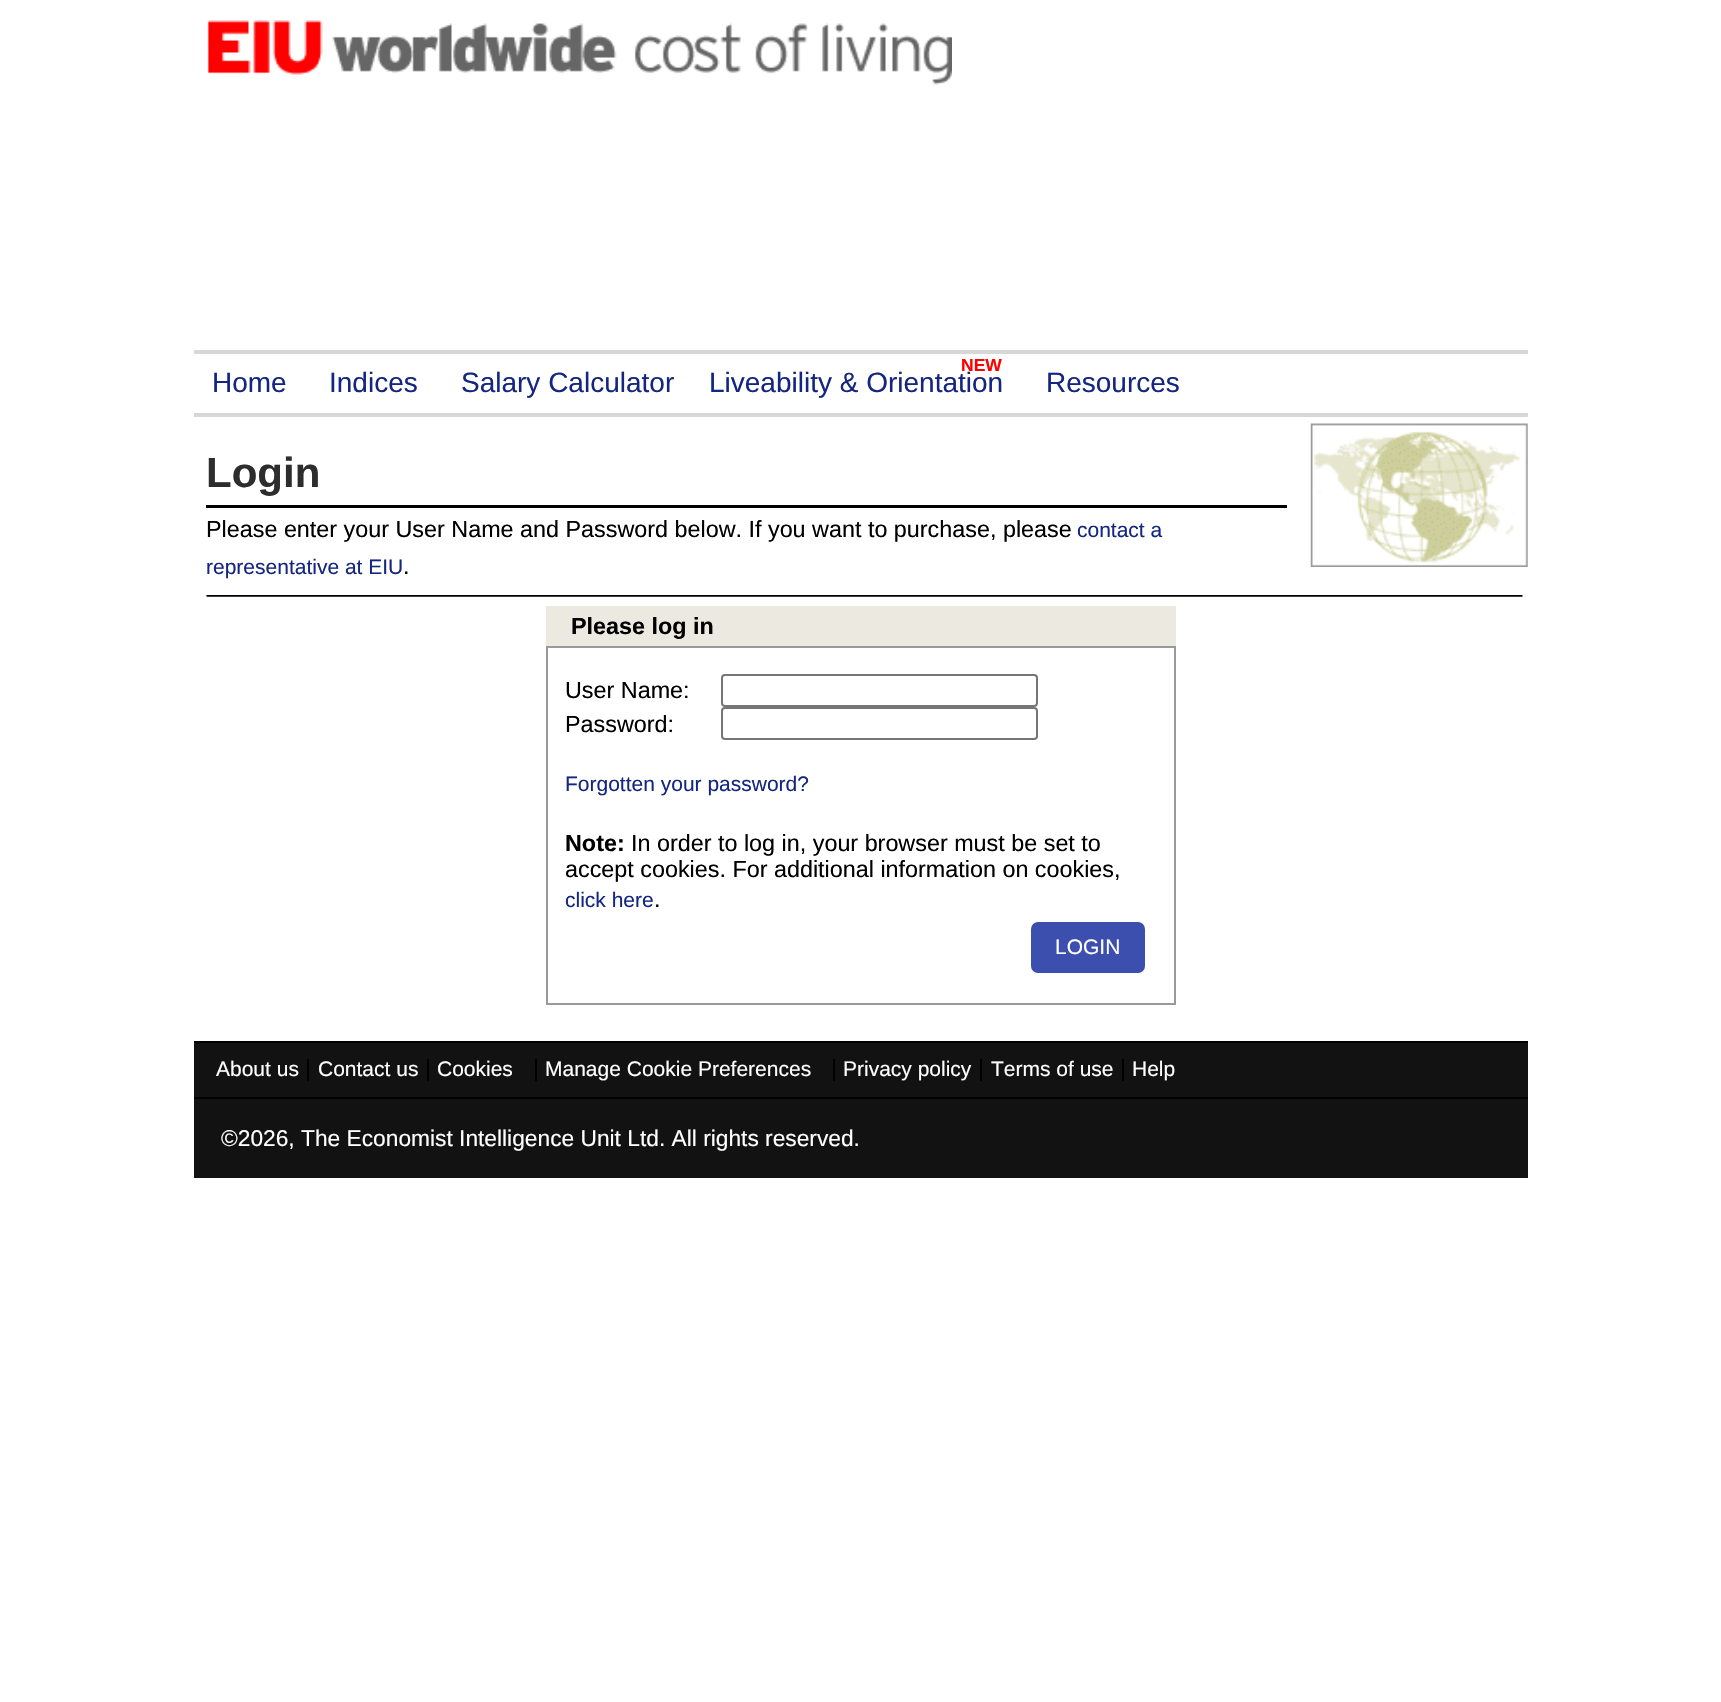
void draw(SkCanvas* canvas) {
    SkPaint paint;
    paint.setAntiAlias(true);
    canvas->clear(0xFFFFFFFF);
    canvas->drawImageRect(SkImages::DeferredFromEncodedData(SkData::MakeFromFileName("img1.png")), SkRect::MakeXYWH(207, 20, 745, 65), SkSamplingOptions());
    paint.setColor(0xFFD7D7D7);
    canvas->drawRect(SkRect::MakeXYWH(194, 350, 1334, 4), paint);
    canvas->drawRect(SkRect::MakeXYWH(194, 413, 1334, 4), paint);
    SkFont font1(fontMgr->matchFamilyStyle("Liberation Sans", SkFontStyle::Normal()), 28);
    font1.setSubpixel(true);
    paint.setColor(0xFF142680);
    canvas->drawString("Home", 212, 392, font1, paint);
    canvas->drawString("Indices", 329, 392, font1, paint);
    canvas->drawString("Salary Calculator", 461, 392, font1, paint);
    SkFont font2(fontMgr->matchFamilyStyle("Liberation Sans", SkFontStyle::Bold()), 17.5f);
    font2.setSubpixel(true);
    paint.setColor(0xFFFF0000);
    canvas->drawString("NEW", 961, 371, font2, paint);
    paint.setColor(0xFF142680);
    canvas->drawString("Liveability & Orientation", 709, 392, font1, paint);
    canvas->drawString("Resources", 1046, 392, font1, paint);
    SkFont font3(fontMgr->matchFamilyStyle("Liberation Sans", SkFontStyle::Bold()), 42);
    font3.setSubpixel(true);
    paint.setColor(0xFF2D2D2D);
    canvas->drawString("Login", 206, 487, font3, paint);
    paint.setColor(0xFF000000);
    canvas->drawRect(SkRect::MakeXYWH(206, 505, 1081, 3), paint);
    SkFont font4(fontMgr->matchFamilyStyle("Liberation Sans", SkFontStyle::Normal()), 23.35f);
    font4.setSubpixel(true);
    canvas->drawString("Please enter your User Name and Password below. If you want to purchase, please", 206, 537, font4, paint);
    SkFont font5(fontMgr->matchFamilyStyle("Liberation Sans", SkFontStyle::Normal()), 21);
    font5.setSubpixel(true);
    paint.setColor(0xFF142680);
    canvas->drawString("contact a", 1077, 537, font5, paint);
    canvas->drawString("representative at EIU", 206, 574, font5, paint);
    paint.setColor(0xFF000000);
    canvas->drawString(".", 403, 574, font4, paint);
    canvas->drawImageRect(SkImages::DeferredFromEncodedData(SkData::MakeFromFileName("img2.png")), SkRect::MakeXYWH(1310, 423, 218, 144), SkSamplingOptions());
    canvas->drawImageRect(SkImages::DeferredFromEncodedData(SkData::MakeFromFileName("img3.png")), SkRect::MakeXYWH(206, 595, 1317, 2), SkSamplingOptions());
    paint.setColor(0xFFEBE9E0);
    canvas->drawRect(SkRect::MakeXYWH(546, 606, 630, 40), paint);
    SkFont font6(fontMgr->matchFamilyStyle("Liberation Sans", SkFontStyle::Bold()), 23.35f);
    font6.setSubpixel(true);
    paint.setColor(0xFF000000);
    canvas->drawString("Please log in", 571, 634, font6, paint);
    paint.setColor(0xFF999999);
    canvas->drawRect(SkRect::MakeXYWH(546, 646, 2, 359), paint);
    canvas->drawRect(SkRect::MakeXYWH(548, 646, 626, 2), paint);
    canvas->drawRect(SkRect::MakeXYWH(1174, 646, 2, 359), paint);
    paint.setColor(0xFF000000);
    canvas->drawString("User Name:", 565, 698, font4, paint);
    paint.setStyle(SkPaint::kStroke_Style);
    paint.setStrokeWidth(2);
    paint.setColor(0xFF767676);
    canvas->drawRoundRect(SkRect::MakeXYWH(722, 675, 315, 31), 3, 3, paint);
    paint.setStyle(SkPaint::kFill_Style);
    paint.setColor(0xFF000000);
    canvas->drawString("Password:", 565, 732, font4, paint);
    paint.setStyle(SkPaint::kStroke_Style);
    paint.setColor(0xFF767676);
    canvas->drawRoundRect(SkRect::MakeXYWH(722, 708, 315, 31), 3, 3, paint);
    paint.setStyle(SkPaint::kFill_Style);
    paint.setColor(0xFF142680);
    canvas->drawString("Forgotten your password?", 565, 791, font5, paint);
    paint.setColor(0xFF000000);
    canvas->drawString("Note:", 565, 851, font6, paint);
    canvas->drawString("In order to log in, your browser must be set to", 631, 851, font4, paint);
    canvas->drawString("accept cookies. For additional information on cookies,", 565, 877, font4, paint);
    paint.setColor(0xFF142680);
    canvas->drawString("click here", 565, 907, font5, paint);
    paint.setColor(0xFF000000);
    canvas->drawString(".", 654, 907, font4, paint);
    paint.setColor(0xFF3C4FAF);
    canvas->drawRoundRect(SkRect::MakeXYWH(1031, 922, 114, 51), 7, 7, paint);
    paint.setColor(0xFFFFFFFF);
    canvas->drawString("LOGIN", 1055, 954, font5, paint);
    paint.setColor(0xFF999999);
    canvas->drawRect(SkRect::MakeXYWH(548, 1003, 628, 2), paint);
    paint.setColor(0xFF000000);
    canvas->drawRect(SkRect::MakeXYWH(194, 1041, 1334, 2), paint);
    paint.setColor(0xFF121212);
    canvas->drawRect(SkRect::MakeXYWH(194, 1043, 1334, 54), paint);
    paint.setColor(0xFFFFFFFF);
    canvas->drawString("About us", 216, 1076, font5, paint);
    paint.setColor(0xFF000000);
    canvas->drawString("|", 305, 1076, font4, paint);
    paint.setColor(0xFFFFFFFF);
    canvas->drawString("Contact us", 318, 1076, font5, paint);
    paint.setColor(0xFF000000);
    canvas->drawString("|", 425, 1076, font4, paint);
    paint.setColor(0xFFFFFFFF);
    canvas->drawString("Cookies", 437, 1076, font5, paint);
    paint.setColor(0xFF000000);
    canvas->drawString("|", 533, 1076, font4, paint);
    paint.setColor(0xFFFFFFFF);
    canvas->drawString("Manage Cookie Preferences", 545, 1076, font5, paint);
    paint.setColor(0xFF000000);
    canvas->drawString("|", 831, 1076, font4, paint);
    paint.setColor(0xFFFFFFFF);
    canvas->drawString("Privacy policy", 843, 1076, font5, paint);
    paint.setColor(0xFF000000);
    canvas->drawString("|", 978, 1076, font4, paint);
    paint.setColor(0xFFFFFFFF);
    canvas->drawString("Terms of use", 991, 1076, font5, paint);
    paint.setColor(0xFF000000);
    canvas->drawString("|", 1120, 1076, font4, paint);
    paint.setColor(0xFFFFFFFF);
    canvas->drawString("Help", 1132, 1076, font5, paint);
    paint.setColor(0xFF000000);
    canvas->drawRect(SkRect::MakeXYWH(194, 1097, 1334, 2), paint);
    paint.setColor(0xFF121212);
    canvas->drawRect(SkRect::MakeXYWH(194, 1099, 1334, 79), paint);
    SkFont font7(fontMgr->matchFamilyStyle("Liberation Sans", SkFontStyle::Normal()), 22.75f);
    font7.setSubpixel(true);
    paint.setColor(0xFFFFFFFF);
    canvas->drawString("©2026, The Economist Intelligence Unit Ltd. All rights reserved.", 221, 1146, font7, paint);
}
